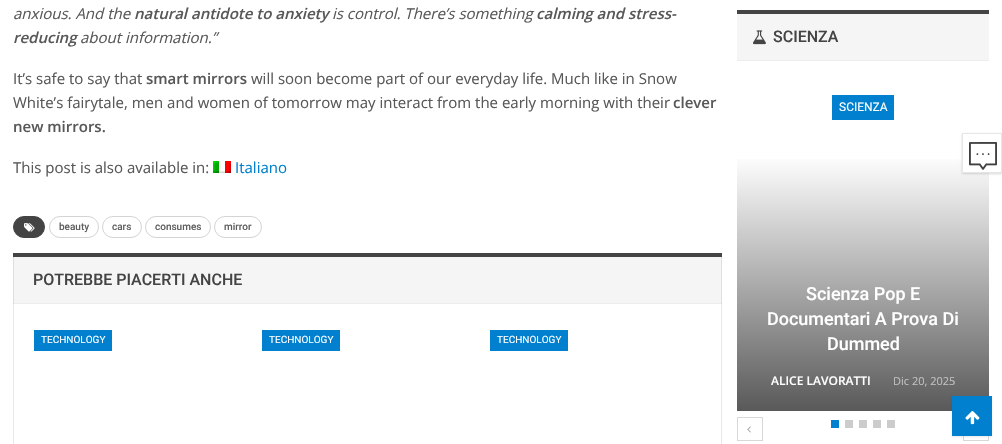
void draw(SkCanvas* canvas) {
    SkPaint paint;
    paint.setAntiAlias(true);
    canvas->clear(0xFFFFFFFF);
    SkFont font1(fontMgr->matchFamilyStyle("Open Sans", SkFontStyle::Italic()), 15);
    font1.setSubpixel(true);
    paint.setColor(0xFF585858);
    canvas->drawString("anxious. And the", 13, 19, font1, paint);
    SkFont font2(fontMgr->matchFamilyStyle("Open Sans", SkFontStyle(600, SkFontStyle::kNormal_Width, SkFontStyle::kItalic_Slant)), 15);
    font2.setSubpixel(true);
    canvas->drawString("natural antidote to anxiety", 134, 19, font2, paint);
    canvas->drawString("is control. There’s something", 332, 19, font1, paint);
    canvas->drawString("calming and stress-", 536, 19, font2, paint);
    canvas->drawString("reducing", 13, 43, font2, paint);
    canvas->drawString("about information.”", 80, 43, font1, paint);
    SkFont font3(fontMgr->matchFamilyStyle("Open Sans", SkFontStyle::Normal()), 15);
    font3.setSubpixel(true);
    canvas->drawString("It’s safe to say that", 13, 84, font3, paint);
    SkFont font4(fontMgr->matchFamilyStyle("Open Sans", SkFontStyle(600, SkFontStyle::kNormal_Width, SkFontStyle::kUpright_Slant)), 15);
    font4.setSubpixel(true);
    canvas->drawString("smart mirrors", 146, 84, font4, paint);
    canvas->drawString("will soon become part of our everyday life. Much like in Snow", 251, 84, font3, paint);
    canvas->drawString("White’s fairytale, men and women of tomorrow may interact from the early morning with their", 13, 108, font3, paint);
    canvas->drawString("clever", 673, 108, font4, paint);
    canvas->drawString("new mirrors.", 13, 132, font4, paint);
    canvas->drawString("This post is also available in:", 13, 173, font3, paint);
    canvas->drawImageRect(SkImages::DeferredFromEncodedData(SkData::MakeFromFileName("img1.png")), SkRect::MakeXYWH(213, 161, 18, 12), SkSamplingOptions());
    paint.setColor(0xFF0080CE);
    canvas->drawString("Italiano", 235, 173, font3, paint);
    paint.setColor(0xFF444444);
    canvas->drawRoundRect(SkRect::MakeXYWH(13.5f, 216.5f, 31, 21), 10.5f, 10.5f, paint);
    paint.setStyle(SkPaint::kStroke_Style);
    paint.setStrokeWidth(1);
    canvas->drawRoundRect(SkRect::MakeXYWH(13.5f, 216.5f, 31, 21), 10.5f, 10.5f, paint);
    canvas->drawImageRect(SkImages::DeferredFromEncodedData(SkData::MakeFromFileName("img2.png")), SkRect::MakeXYWH(24, 223, 11, 9), SkSamplingOptions());
    paint.setColor(0xFFD4D4D4);
    canvas->drawRoundRect(SkRect::MakeXYWH(49.5f, 216.5f, 49, 21), 10.5f, 10.5f, paint);
    SkFont font5(fontMgr->matchFamilyStyle("Roboto", SkFontStyle(500, SkFontStyle::kNormal_Width, SkFontStyle::kUpright_Slant)), 10);
    font5.setSubpixel(true);
    paint.setStyle(SkPaint::kFill_Style);
    paint.setColor(0xFF5F5F5F);
    canvas->drawString("beauty", 59, 230, font5, paint);
    paint.setStyle(SkPaint::kStroke_Style);
    paint.setColor(0xFFD4D4D4);
    canvas->drawRoundRect(SkRect::MakeXYWH(102.5f, 216.5f, 39, 21), 10.5f, 10.5f, paint);
    paint.setStyle(SkPaint::kFill_Style);
    paint.setColor(0xFF5F5F5F);
    canvas->drawString("cars", 112, 230, font5, paint);
    paint.setStyle(SkPaint::kStroke_Style);
    paint.setColor(0xFFD4D4D4);
    canvas->drawRoundRect(SkRect::MakeXYWH(145.5f, 216.5f, 65, 21), 10.5f, 10.5f, paint);
    paint.setStyle(SkPaint::kFill_Style);
    paint.setColor(0xFF5F5F5F);
    canvas->drawString("consumes", 155, 230, font5, paint);
    paint.setStyle(SkPaint::kStroke_Style);
    paint.setColor(0xFFD4D4D4);
    canvas->drawRoundRect(SkRect::MakeXYWH(214.5f, 216.5f, 47, 21), 10.5f, 10.5f, paint);
    paint.setStyle(SkPaint::kFill_Style);
    paint.setColor(0xFF5F5F5F);
    canvas->drawString("mirror", 224, 230, font5, paint);
    paint.setStyle(SkPaint::kStroke_Style);
    paint.setColor(0xFFE8E8E8);
    canvas->drawRect(SkRect::MakeXYWH(13.5f, 253.5f, 708, 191), paint);
    paint.setStyle(SkPaint::kFill_Style);
    paint.setColor(0x0A000000);
    canvas->drawRect(SkRect::MakeXYWH(13, 257, 709, 46), paint);
    paint.setColor(0xFF444444);
    canvas->drawRect(SkRect::MakeXYWH(13, 253, 709, 4), paint);
    SkFont font6(fontMgr->matchFamilyStyle("Roboto", SkFontStyle(500, SkFontStyle::kNormal_Width, SkFontStyle::kUpright_Slant)), 16);
    font6.setSubpixel(true);
    canvas->drawString("POTREBBE PIACERTI ANCHE", 33, 285, font6, paint);
    paint.setColor(0x12000000);
    canvas->drawRect(SkRect::MakeXYWH(13, 303, 709, 1), paint);
    paint.setColor(0xFF0080CE);
    canvas->drawRect(SkRect::MakeXYWH(34, 330, 78, 21), paint);
    SkFont font7(fontMgr->matchFamilyStyle("Roboto", SkFontStyle::Normal()), 10);
    font7.setSubpixel(true);
    paint.setColor(0xFFFFFFFF);
    canvas->drawString("TECHNOLOGY", 41, 343, font7, paint);
    paint.setColor(0xFF0080CE);
    canvas->drawRect(SkRect::MakeXYWH(262, 330, 78, 21), paint);
    paint.setColor(0xFFFFFFFF);
    canvas->drawString("TECHNOLOGY", 269, 343, font7, paint);
    paint.setColor(0xFF0080CE);
    canvas->drawRect(SkRect::MakeXYWH(490, 330, 78, 21), paint);
    paint.setColor(0xFFFFFFFF);
    canvas->drawString("TECHNOLOGY", 497, 343, font7, paint);
    paint.setColor(0xFFF5F5F5);
    canvas->drawRect(SkRect::MakeXYWH(737, 14, 252, 46), paint);
    paint.setColor(0xFF444444);
    canvas->drawRect(SkRect::MakeXYWH(737, 10, 252, 4), paint);
    canvas->drawImageRect(SkImages::DeferredFromEncodedData(SkData::MakeFromFileName("img3.png")), SkRect::MakeXYWH(753, 30, 13, 15), SkSamplingOptions());
    canvas->drawString("SCIENZA", 773, 42, font6, paint);
    paint.setColor(0xFFEDEDED);
    canvas->drawRect(SkRect::MakeXYWH(737, 60, 252, 1), paint);
    paint.setColor(0xFF0080CE);
    canvas->drawRect(SkRect::MakeXYWH(832, 95, 62, 25), paint);
    SkFont font8(fontMgr->matchFamilyStyle("Roboto", SkFontStyle::Normal()), 12);
    font8.setSubpixel(true);
    paint.setColor(0xFFFFFFFF);
    canvas->drawString("SCIENZA", 839, 111, font8, paint);
    {
        const SkColor colors[] = {0xFFFFFFFF, 0xFF595959};
        const float stops[] = {0, 1};
        const SkPoint ends[] = {{864, 155}, {864, 411}};
        paint.setShader(SkGradientShader::MakeLinear(ends, colors, stops, 2, SkTileMode::kClamp));
        paint.setAlpha(255);
    }
    canvas->drawRect(SkRect::MakeXYWH(737, 159, 252, 252), paint);
    SkFont font9(fontMgr->matchFamilyStyle("Roboto", SkFontStyle(500, SkFontStyle::kNormal_Width, SkFontStyle::kUpright_Slant)), 18);
    font9.setSubpixel(true);
    paint.setShader(nullptr);
    paint.setColor(0xFFFFFFFF);
    canvas->drawString("Scienza Pop E", 806, 300, font9, paint);
    canvas->drawString("Documentari A Prova Di", 767, 325, font9, paint);
    canvas->drawString("Dummed", 827, 350, font9, paint);
    SkFont font10(fontMgr->matchFamilyStyle("Open Sans", SkFontStyle(600, SkFontStyle::kNormal_Width, SkFontStyle::kUpright_Slant)), 12);
    font10.setSubpixel(true);
    canvas->drawString("ALICE LAVORATTI", 771, 385, font10, paint);
    SkFont font11(fontMgr->matchFamilyStyle("Open Sans", SkFontStyle::Normal()), 11);
    font11.setSubpixel(true);
    paint.setColor(0xFFC0C0C0);
    canvas->drawString("Dic 20, 2025", 893, 385, font11, paint);
    paint.setStyle(SkPaint::kStroke_Style);
    paint.setColor(0xFFD8D8D8);
    canvas->drawRect(SkRect::MakeXYWH(737.5f, 417.5f, 25, 23), paint);
    canvas->drawImageRect(SkImages::DeferredFromEncodedData(SkData::MakeFromFileName("img4.png")), SkRect::MakeXYWH(747, 426, 4, 7), SkSamplingOptions());
    canvas->drawRect(SkRect::MakeXYWH(963.5f, 417.5f, 25, 23), paint);
    paint.setStyle(SkPaint::kFill_Style);
    paint.setColor(0xFF0080CE);
    canvas->drawRect(SkRect::MakeXYWH(831, 420, 8, 8), paint);
    paint.setColor(0xFFCCCCCC);
    canvas->drawRect(SkRect::MakeXYWH(845, 420, 8, 8), paint);
    canvas->drawRect(SkRect::MakeXYWH(859, 420, 8, 8), paint);
    canvas->drawRect(SkRect::MakeXYWH(873, 420, 8, 8), paint);
    canvas->drawRect(SkRect::MakeXYWH(887, 420, 8, 8), paint);
    paint.setColor(0x26000000);
    paint.setMaskFilter(SkMaskFilter::MakeBlur(kNormal_SkBlurStyle, 1));
    canvas->drawRect(SkRect::MakeXYWH(962, 134, 40, 40), paint);
    paint.setMaskFilter(nullptr);
    paint.setColor(0xFFFFFFFF);
    canvas->drawRect(SkRect::MakeXYWH(962.5f, 133.5f, 39, 39), paint);
    paint.setStyle(SkPaint::kStroke_Style);
    paint.setColor(0xFFE6E6E6);
    canvas->drawRect(SkRect::MakeXYWH(962.5f, 133.5f, 39, 39), paint);
    canvas->drawImageRect(SkImages::DeferredFromEncodedData(SkData::MakeFromFileName("img5.png")), SkRect::MakeXYWH(969, 142, 28, 28), SkSamplingOptions());
    paint.setStyle(SkPaint::kFill_Style);
    paint.setColor(0x17000000);
    paint.setMaskFilter(SkMaskFilter::MakeBlur(kNormal_SkBlurStyle, 1));
    canvas->drawRect(SkRect::MakeXYWH(952, 397, 40, 40), paint);
    paint.setMaskFilter(nullptr);
    paint.setColor(0xFF0080CE);
    canvas->drawRect(SkRect::MakeXYWH(952, 396, 40, 40), paint);
    canvas->drawImageRect(SkImages::DeferredFromEncodedData(SkData::MakeFromFileName("img6.png")), SkRect::MakeXYWH(965, 411, 15, 14), SkSamplingOptions());
}
